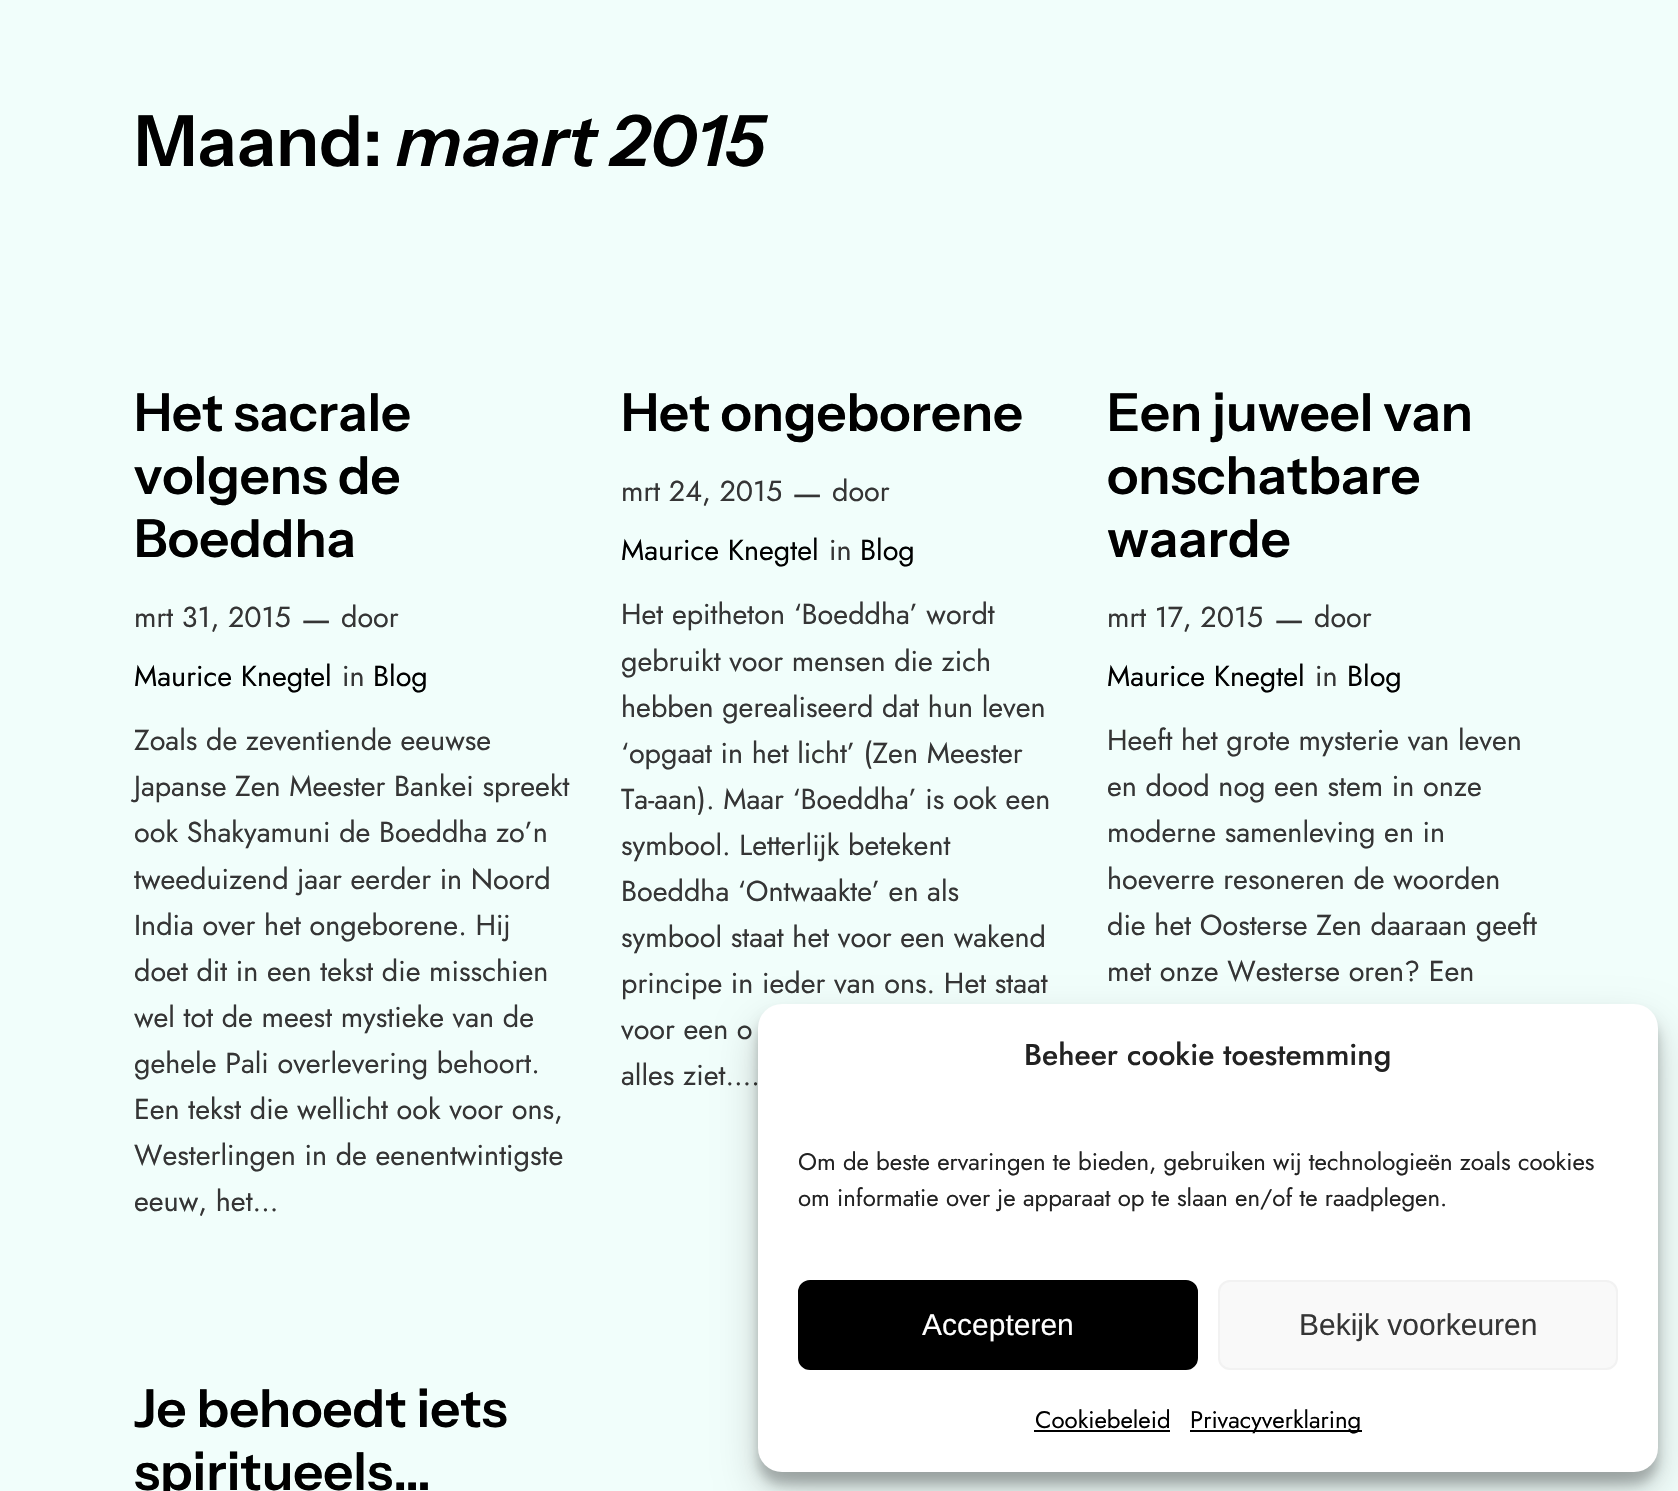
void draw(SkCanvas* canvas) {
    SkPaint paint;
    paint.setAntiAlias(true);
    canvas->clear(0xFFF1FEFB);
    SkFont font1(fontMgr->matchFamilyStyle("Instrument Sans", SkFontStyle(600, SkFontStyle::kNormal_Width, SkFontStyle::kUpright_Slant)), 70.5f);
    font1.setSubpixel(true);
    paint.setColor(0xFF000000);
    canvas->drawString("Maand:", 134, 166, font1, paint);
    SkFont font2(fontMgr->matchFamilyStyle("Instrument Sans", SkFontStyle(600, SkFontStyle::kNormal_Width, SkFontStyle::kItalic_Slant)), 70.5f);
    font2.setSubpixel(true);
    canvas->drawString("maart 2015", 396, 166, font2, paint);
    SkFont font3(fontMgr->matchFamilyStyle("Instrument Sans", SkFontStyle(600, SkFontStyle::kNormal_Width, SkFontStyle::kUpright_Slant)), 52.5f);
    font3.setSubpixel(true);
    canvas->drawString("Het sacrale", 134, 431, font3, paint);
    canvas->drawString("volgens de", 134, 494, font3, paint);
    canvas->drawString("Boeddha", 134, 557, font3, paint);
    SkFont font4(fontMgr->matchFamilyStyle("Jost", SkFontStyle::Normal()), 28.75f);
    font4.setSubpixel(true);
    paint.setColor(0xFF353535);
    canvas->drawString("mrt 31, 2015", 134, 627, font4, paint);
    SkFont font5(fontMgr->matchFamilyStyle("Jost", SkFontStyle::Normal()), 34);
    font5.setSubpixel(true);
    canvas->drawString("—", 301, 630, font5, paint);
    canvas->drawString("door", 341, 627, font4, paint);
    paint.setColor(0xFF000000);
    canvas->drawString("Maurice Knegtel", 134, 686, font4, paint);
    paint.setColor(0xFF353535);
    canvas->drawString("in", 342, 686, font4, paint);
    paint.setColor(0xFF000000);
    canvas->drawString("Blog", 373, 686, font4, paint);
    paint.setColor(0xFF353535);
    canvas->drawString("Zoals de zeventiende eeuwse", 134, 750, font4, paint);
    canvas->drawString("Japanse Zen Meester Bankei spreekt", 134, 796, font4, paint);
    canvas->drawString("ook Shakyamuni de Boeddha zo’n", 134, 842, font4, paint);
    canvas->drawString("tweeduizend jaar eerder in Noord", 134, 889, font4, paint);
    canvas->drawString("India over het ongeborene. Hij", 134, 935, font4, paint);
    canvas->drawString("doet dit in een tekst die misschien", 134, 981, font4, paint);
    canvas->drawString("wel tot de meest mystieke van de", 134, 1027, font4, paint);
    canvas->drawString("gehele Pali overlevering behoort.", 134, 1073, font4, paint);
    canvas->drawString("Een tekst die wellicht ook voor ons,", 134, 1119, font4, paint);
    canvas->drawString("Westerlingen in de eenentwintigste", 134, 1165, font4, paint);
    canvas->drawString("eeuw, het…", 134, 1211, font4, paint);
    paint.setColor(0xFF000000);
    canvas->drawString("Het ongeborene", 621, 431, font3, paint);
    paint.setColor(0xFF353535);
    canvas->drawString("mrt 24, 2015", 621, 501, font4, paint);
    canvas->drawString("—", 792, 504, font5, paint);
    canvas->drawString("door", 832, 501, font4, paint);
    paint.setColor(0xFF000000);
    canvas->drawString("Maurice Knegtel", 621, 560, font4, paint);
    paint.setColor(0xFF353535);
    canvas->drawString("in", 829, 560, font4, paint);
    paint.setColor(0xFF000000);
    canvas->drawString("Blog", 860, 560, font4, paint);
    paint.setColor(0xFF353535);
    canvas->drawString("Het epitheton ‘Boeddha’ wordt", 621, 624, font4, paint);
    canvas->drawString("gebruikt voor mensen die zich", 621, 671, font4, paint);
    canvas->drawString("hebben gerealiseerd dat hun leven", 621, 717, font4, paint);
    canvas->drawString("‘opgaat in het licht’ (Zen Meester", 621, 763, font4, paint);
    canvas->drawString("Ta-aan). Maar ‘Boeddha’ is ook een", 621, 809, font4, paint);
    canvas->drawString("symbool. Letterlijk betekent", 621, 855, font4, paint);
    canvas->drawString("Boeddha ‘Ontwaakte’ en als", 621, 901, font4, paint);
    canvas->drawString("symbool staat het voor een wakend", 621, 947, font4, paint);
    canvas->drawString("principe in ieder van ons. Het staat", 621, 993, font4, paint);
    canvas->drawString("voor een o", 621, 1039, font4, paint);
    canvas->drawString("alles ziet.…", 621, 1085, font4, paint);
    paint.setColor(0xFF000000);
    canvas->drawString("Een juweel van", 1107, 431, font3, paint);
    canvas->drawString("onschatbare", 1107, 494, font3, paint);
    canvas->drawString("waarde", 1107, 557, font3, paint);
    paint.setColor(0xFF353535);
    canvas->drawString("mrt 17, 2015", 1107, 627, font4, paint);
    canvas->drawString("—", 1274, 630, font5, paint);
    canvas->drawString("door", 1314, 627, font4, paint);
    paint.setColor(0xFF000000);
    canvas->drawString("Maurice Knegtel", 1107, 686, font4, paint);
    paint.setColor(0xFF353535);
    canvas->drawString("in", 1315, 686, font4, paint);
    paint.setColor(0xFF000000);
    canvas->drawString("Blog", 1347, 686, font4, paint);
    paint.setColor(0xFF353535);
    canvas->drawString("Heeft het grote mysterie van leven", 1107, 750, font4, paint);
    canvas->drawString("en dood nog een stem in onze", 1107, 796, font4, paint);
    canvas->drawString("moderne samenleving en in", 1107, 842, font4, paint);
    canvas->drawString("hoeverre resoneren de woorden", 1107, 889, font4, paint);
    canvas->drawString("die het Oosterse Zen daaraan geeft", 1107, 935, font4, paint);
    canvas->drawString("met onze Westerse oren? Een", 1107, 981, font4, paint);
    paint.setColor(0xFF000000);
    canvas->drawString("Je behoedt iets", 134, 1427, font3, paint);
    canvas->drawString("spiritueels…", 134, 1490, font3, paint);
    paint.setColor(0x3B000000);
    paint.setMaskFilter(SkMaskFilter::MakeBlur(kNormal_SkBlurStyle, 6));
    canvas->drawRoundRect(SkRect::MakeXYWH(758, 1016, 900, 468), 24, 24, paint);
    paint.setMaskFilter(nullptr);
    paint.setColor(0x30000000);
    paint.setMaskFilter(SkMaskFilter::MakeBlur(kNormal_SkBlurStyle, 20));
    canvas->drawRoundRect(SkRect::MakeXYWH(758, 1024, 900, 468), 24, 24, paint);
    paint.setMaskFilter(nullptr);
    paint.setColor(0xFFFFFFFF);
    canvas->drawRoundRect(SkRect::MakeXYWH(758, 1004, 900, 468), 24, 24, paint);
    SkFont font6(fontMgr->matchFamilyStyle("Jost", SkFontStyle(500, SkFontStyle::kNormal_Width, SkFontStyle::kUpright_Slant)), 30);
    font6.setSubpixel(true);
    paint.setColor(0xFF222222);
    canvas->drawString("Beheer cookie toestemming", 1024, 1065, font6, paint);
    SkFont font7(fontMgr->matchFamilyStyle("Jost", SkFontStyle::Normal()), 24);
    font7.setSubpixel(true);
    canvas->drawString("Om de beste ervaringen te bieden, gebruiken wij technologieën zoals cookies", 798, 1170, font7, paint);
    canvas->drawString("om informatie over je apparaat op te slaan en/of te raadplegen.", 798, 1206, font7, paint);
    paint.setColor(0xFF000000);
    canvas->drawRoundRect(SkRect::MakeXYWH(799, 1281, 398, 88), 11, 11, paint);
    paint.setStyle(SkPaint::kStroke_Style);
    paint.setStrokeWidth(2);
    canvas->drawRoundRect(SkRect::MakeXYWH(799, 1281, 398, 88), 11, 11, paint);
    SkFont font8(fontMgr->matchFamilyStyle("Liberation Sans", SkFontStyle::Normal()), 30);
    font8.setSubpixel(true);
    paint.setStyle(SkPaint::kFill_Style);
    paint.setColor(0xFFFFFFFF);
    canvas->drawString("Accepteren", 922, 1335, font8, paint);
    paint.setColor(0xFFF9F9F9);
    canvas->drawRoundRect(SkRect::MakeXYWH(1219, 1281, 398, 88), 11, 11, paint);
    paint.setStyle(SkPaint::kStroke_Style);
    paint.setColor(0xFFF2F2F2);
    canvas->drawRoundRect(SkRect::MakeXYWH(1219, 1281, 398, 88), 11, 11, paint);
    paint.setStyle(SkPaint::kFill_Style);
    paint.setColor(0xFF353535);
    canvas->drawString("Bekijk voorkeuren", 1299, 1335, font8, paint);
    paint.setColor(0xFF000000);
    canvas->drawString("Cookiebeleid", 1035, 1428, font7, paint);
    canvas->drawRect(SkRect::MakeXYWH(1034, 1430, 136, 2), paint);
    canvas->drawRect(SkRect::MakeXYWH(1190, 1430, 172, 2), paint);
    canvas->drawString("Privacyverklaring", 1190, 1428, font7, paint);
}
